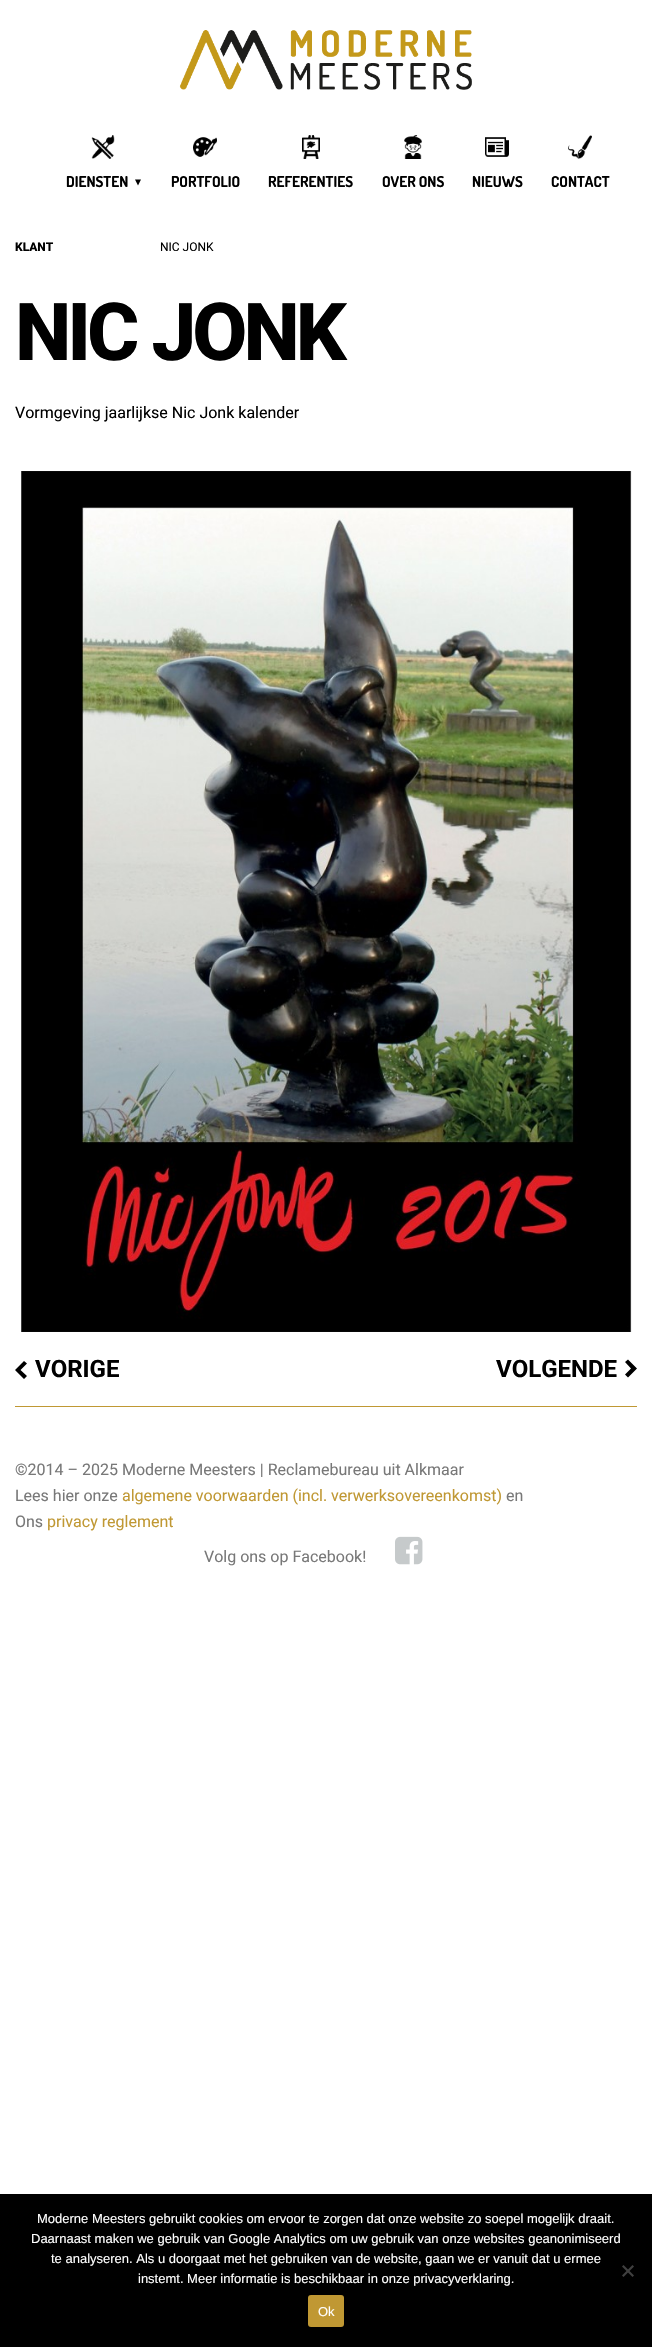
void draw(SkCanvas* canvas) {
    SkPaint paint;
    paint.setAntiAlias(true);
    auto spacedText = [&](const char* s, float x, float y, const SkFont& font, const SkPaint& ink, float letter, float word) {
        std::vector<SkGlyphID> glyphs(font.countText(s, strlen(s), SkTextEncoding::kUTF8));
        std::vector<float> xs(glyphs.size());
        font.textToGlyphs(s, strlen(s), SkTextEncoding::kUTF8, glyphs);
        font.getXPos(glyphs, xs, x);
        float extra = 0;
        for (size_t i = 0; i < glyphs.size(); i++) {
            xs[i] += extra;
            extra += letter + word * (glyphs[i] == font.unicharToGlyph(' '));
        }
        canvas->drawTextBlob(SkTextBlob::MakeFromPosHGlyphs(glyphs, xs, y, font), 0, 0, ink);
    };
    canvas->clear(0xFFFFFFFF);
    canvas->drawImageRect(SkImages::DeferredFromEncodedData(SkData::MakeFromFileName("img1.png")), SkRect::MakeXYWH(179, 30, 293, 60), SkSamplingOptions());
    canvas->drawImageRect(SkImages::DeferredFromEncodedData(SkData::MakeFromFileName("img2.png")), SkRect::MakeXYWH(91, 135, 24, 24), SkSamplingOptions());
    SkFont font1(fontMgr->matchFamilyStyle("Dosis", SkFontStyle::Bold()), 15);
    font1.setSubpixel(true);
    paint.setColor(0xFF000000);
    canvas->drawString("DIENSTEN", 66, 187, font1, paint);
    canvas->drawPath(SkPathBuilder().moveTo(138, 185.5f).lineTo(135, 179.5f).lineTo(141, 179.5f).close().detach(), paint);
    canvas->drawImageRect(SkImages::DeferredFromEncodedData(SkData::MakeFromFileName("img3.png")), SkRect::MakeXYWH(193, 137, 24, 20), SkSamplingOptions());
    canvas->drawString("PORTFOLIO", 171, 187, font1, paint);
    canvas->drawImageRect(SkImages::DeferredFromEncodedData(SkData::MakeFromFileName("img4.png")), SkRect::MakeXYWH(302, 135, 18, 24), SkSamplingOptions());
    canvas->drawString("REFERENTIES", 268, 187, font1, paint);
    canvas->drawImageRect(SkImages::DeferredFromEncodedData(SkData::MakeFromFileName("img5.png")), SkRect::MakeXYWH(404, 135, 18, 24), SkSamplingOptions());
    canvas->drawString("OVER ONS", 382, 187, font1, paint);
    canvas->drawImageRect(SkImages::DeferredFromEncodedData(SkData::MakeFromFileName("img6.png")), SkRect::MakeXYWH(485, 137, 24, 20), SkSamplingOptions());
    canvas->drawString("NIEUWS", 472, 187, font1, paint);
    canvas->drawImageRect(SkImages::DeferredFromEncodedData(SkData::MakeFromFileName("img7.png")), SkRect::MakeXYWH(568, 135, 24, 24), SkSamplingOptions());
    canvas->drawString("CONTACT", 551, 187, font1, paint);
    SkFont font2(fontMgr->matchFamilyStyle("Roboto", SkFontStyle(800, SkFontStyle::kNormal_Width, SkFontStyle::kUpright_Slant)), 12);
    font2.setSubpixel(true);
    canvas->drawString("KLANT", 15, 251, font2, paint);
    SkFont font3(fontMgr->matchFamilyStyle("Roboto", SkFontStyle::Normal()), 12);
    font3.setSubpixel(true);
    canvas->drawString("NIC JONK", 160, 251, font3, paint);
    SkFont font4(fontMgr->matchFamilyStyle("Roboto", SkFontStyle(800, SkFontStyle::kNormal_Width, SkFontStyle::kUpright_Slant)), 80);
    font4.setSubpixel(true);
    spacedText("NIC JONK", 15, 360, font4, paint, -4, 0);
    SkFont font5(fontMgr->matchFamilyStyle("Roboto", SkFontStyle::Normal()), 16);
    font5.setSubpixel(true);
    canvas->drawString("Vormgeving jaarlijkse Nic Jonk kalender", 15, 418, font5, paint);
    canvas->drawImageRect(SkImages::DeferredFromEncodedData(SkData::MakeFromFileName("img8.png")), SkRect::MakeXYWH(21, 471, 611, 861), SkSamplingOptions());
    canvas->drawPath(SkPathBuilder().moveTo(24, 1379).lineTo(15, 1370).lineTo(24, 1361).lineTo(27, 1363.5f).lineTo(20.5f, 1370).lineTo(27, 1376).close().detach(), paint);
    SkFont font6(fontMgr->matchFamilyStyle("Roboto", SkFontStyle::Bold()), 24);
    font6.setSubpixel(true);
    canvas->drawString("VORIGE", 35, 1377, font6, paint);
    canvas->drawString("VOLGENDE", 496, 1377, font6, paint);
    canvas->drawPath(SkPathBuilder().moveTo(628, 1359.5f).lineTo(637, 1368.5f).lineTo(628, 1377.5f).lineTo(625, 1374.5f).lineTo(631, 1368.5f).lineTo(625, 1362).close().detach(), paint);
    paint.setColor(0xFFC09833);
    canvas->drawRect(SkRect::MakeXYWH(15, 1406, 622, 1), paint);
    paint.setColor(0xFF787878);
    canvas->drawString("©2014 – 2025 Moderne Meesters | Reclamebureau uit Alkmaar", 15, 1475, font5, paint);
    canvas->drawString("Lees hier onze", 15, 1501, font5, paint);
    paint.setColor(0xFFC09833);
    canvas->drawString("algemene voorwaarden (incl. verwerksovereenkomst)", 122, 1501, font5, paint);
    paint.setColor(0xFF787878);
    canvas->drawString("en", 506, 1501, font5, paint);
    canvas->drawString("Ons", 15, 1527, font5, paint);
    paint.setColor(0xFFC09833);
    canvas->drawString("privacy reglement", 47, 1527, font5, paint);
    paint.setColor(0xFF787878);
    canvas->drawString("Volg ons op Facebook!", 204, 1562, font5, paint);
    canvas->drawImageRect(SkImages::DeferredFromEncodedData(SkData::MakeFromFileName("img9.png")), SkRect::MakeXYWH(395, 1536, 28, 29), SkSamplingOptions());
    paint.setColor(0xFF000000);
    canvas->drawRect(SkRect::MakeXYWH(0, 2194, 652, 153), paint);
    SkFont font7(fontMgr->matchFamilyStyle("Liberation Sans", SkFontStyle::Normal()), 13);
    font7.setSubpixel(true);
    paint.setColor(0xFFFFFFFF);
    canvas->drawString("Moderne Meesters gebruikt cookies om ervoor te zorgen dat onze website zo soepel mogelijk draait.", 37, 2223, font7, paint);
    canvas->drawString("Daarnaast maken we gebruik van Google Analytics om uw gebruik van onze websites geanonimiseerd", 31, 2243, font7, paint);
    canvas->drawString("te analyseren. Als u doorgaat met het gebruiken van de website, gaan we er vanuit dat u ermee", 51, 2263, font7, paint);
    canvas->drawString("instemt. Meer informatie is beschikbaar in onze privacyverklaring.", 138, 2283, font7, paint);
    paint.setColor(0xFF404040);
    canvas->drawPath(SkPathBuilder().moveTo(632.5f, 2265).lineTo(634, 2266.5f).lineTo(623.5f, 2277).lineTo(622, 2275.5f).close().detach(), paint);
    canvas->drawPath(SkPathBuilder().moveTo(622, 2266.5f).lineTo(623.5f, 2265).lineTo(634, 2275.5f).lineTo(632.5f, 2277).close().detach(), paint);
    paint.setColor(0xFFC09833);
    canvas->drawRoundRect(SkRect::MakeXYWH(308, 2295, 36, 32), 3, 3, paint);
    paint.setColor(0xFFFFFFFF);
    canvas->drawString("Ok", 318, 2316, font7, paint);
}
